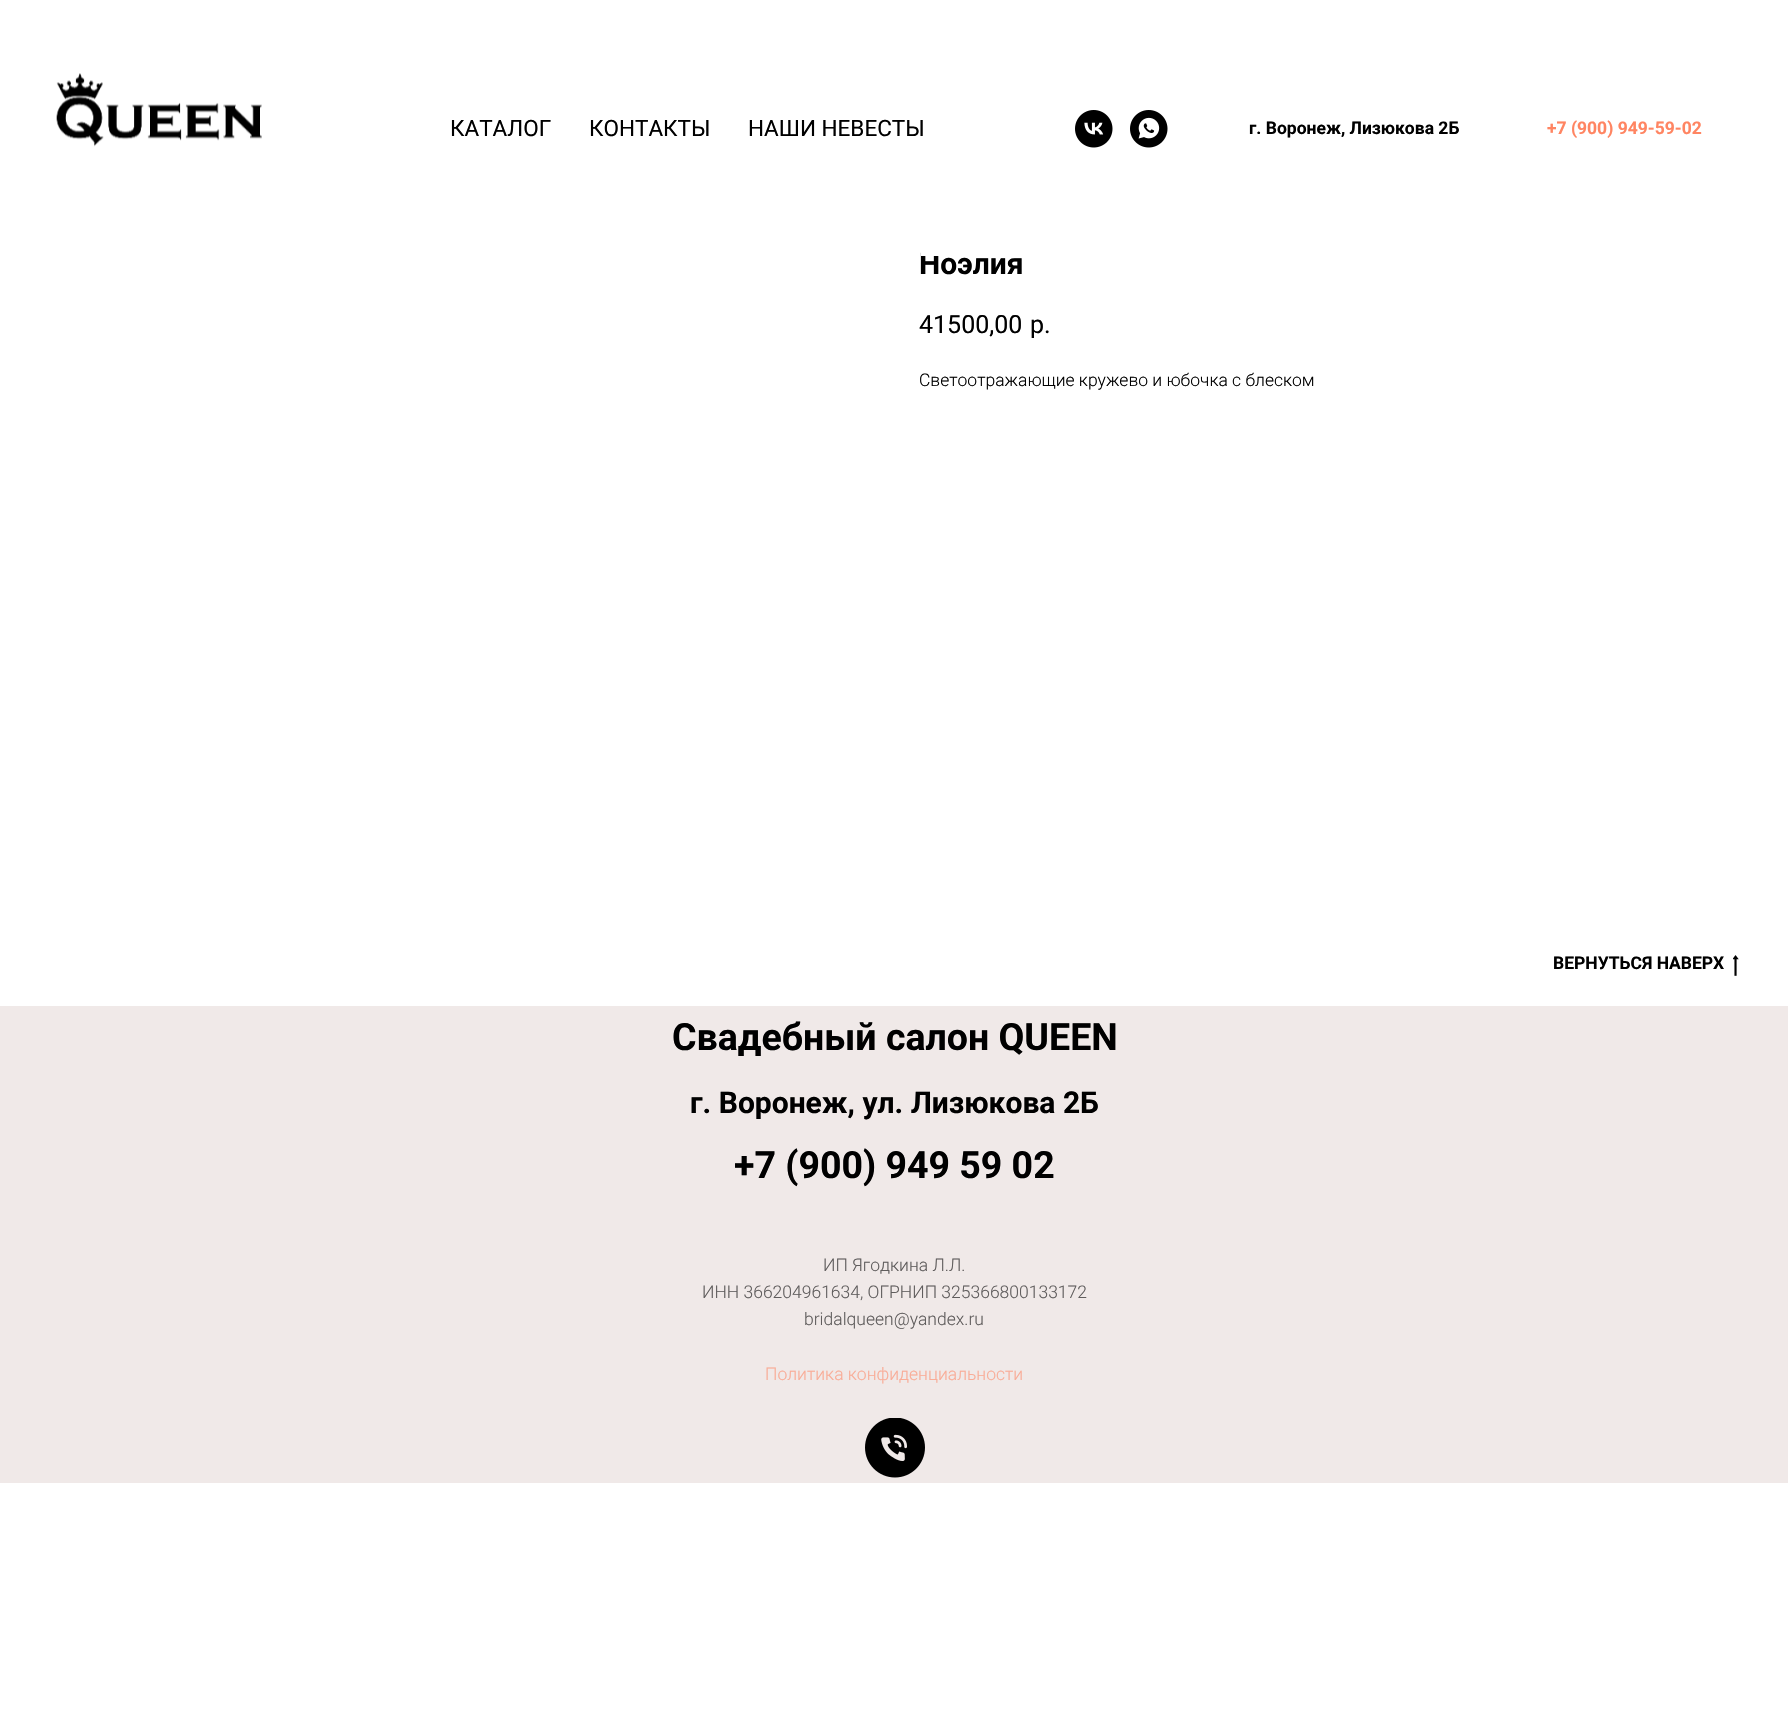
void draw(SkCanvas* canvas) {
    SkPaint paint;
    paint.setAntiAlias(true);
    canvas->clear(0xFFFFFFFF);
    SkFont font1(fontMgr->matchFamilyStyle("Roboto", SkFontStyle::Bold()), 30);
    font1.setSubpixel(true);
    paint.setColor(0xFF000000);
    canvas->drawString("Ноэлия", 919, 274, font1, paint);
    paint.setColor(0xFFFFFFFF);
    canvas->drawRect(SkRect::MakeXYWH(921, 252, 18, 4), paint);
    canvas->drawImageRect(SkImages::DeferredFromEncodedData(SkData::MakeFromFileName("img1.png")), SkRect::MakeXYWH(56, 73, 206, 74), SkSamplingOptions());
    SkFont font2(fontMgr->matchFamilyStyle("Roboto", SkFontStyle::Normal()), 22.5f);
    font2.setSubpixel(true);
    paint.setColor(0xFF000000);
    canvas->drawString("КАТАЛОГ", 450, 136, font2, paint);
    canvas->drawString("КОНТАКТЫ", 589, 136, font2, paint);
    canvas->drawString("НАШИ НЕВЕСТЫ", 748, 136, font2, paint);
    canvas->drawImageRect(SkImages::DeferredFromEncodedData(SkData::MakeFromFileName("img2.png")), SkRect::MakeXYWH(1075, 110, 38, 38), SkSamplingOptions());
    canvas->drawImageRect(SkImages::DeferredFromEncodedData(SkData::MakeFromFileName("img3.png")), SkRect::MakeXYWH(1130, 110, 38, 38), SkSamplingOptions());
    SkFont font3(fontMgr->matchFamilyStyle("Roboto", SkFontStyle::Bold()), 17.5f);
    font3.setSubpixel(true);
    canvas->drawString("г. Воронеж, Лизюкова 2Б", 1249, 134, font3, paint);
    paint.setColor(0xFFFF8562);
    canvas->drawString("+7 (900) 949-59-02", 1547, 134, font3, paint);
    SkFont font4(fontMgr->matchFamilyStyle("Roboto", SkFontStyle::Normal()), 25);
    font4.setSubpixel(true);
    paint.setColor(0xFF000000);
    canvas->drawString("41500,00", 919, 333, font4, paint);
    canvas->drawString("р.", 1030, 333, font4, paint);
    SkFont font5(fontMgr->matchFamilyStyle("Roboto", SkFontStyle(300, SkFontStyle::kNormal_Width, SkFontStyle::kUpright_Slant)), 17.5f);
    font5.setSubpixel(true);
    canvas->drawString("Светоотражающие кружево и юбочка с блеском", 919, 386, font5, paint);
    canvas->drawString("ВЕРНУТЬСЯ НАВЕРХ", 1553, 969, font3, paint);
    canvas->drawImageRect(SkImages::DeferredFromEncodedData(SkData::MakeFromFileName("img4.png")), SkRect::MakeXYWH(1733, 955, 6, 21), SkSamplingOptions());
    paint.setColor(0xFFF0E9E8);
    canvas->drawRect(SkRect::MakeXYWH(0, 1006, 1788, 477), paint);
    SkFont font6(fontMgr->matchFamilyStyle("Roboto", SkFontStyle::Bold()), 37.5f);
    font6.setSubpixel(true);
    paint.setColor(0xFF000000);
    canvas->drawString("Свадебный салон QUEEN", 672, 1050, font6, paint);
    canvas->drawString("г. Воронеж, ул. Лизюкова 2Б", 690, 1113, font1, paint);
    canvas->drawString("+7 (900) 949 59 02", 734, 1178, font6, paint);
    paint.setColor(0xFF605D5D);
    canvas->drawString("ИП Ягодкина Л.Л.", 823, 1271, font5, paint);
    canvas->drawString("ИНН 366204961634, ОГРНИП 325366800133172", 702, 1298, font5, paint);
    canvas->drawString("bridalqueen@yandex.ru", 804, 1325, font5, paint);
    paint.setColor(0xFFF9AD98);
    canvas->drawString("Политика конфиденциальности", 765, 1380, font5, paint);
    canvas->drawImageRect(SkImages::DeferredFromEncodedData(SkData::MakeFromFileName("img5.png")), SkRect::MakeXYWH(865, 1418, 60, 60), SkSamplingOptions());
}
